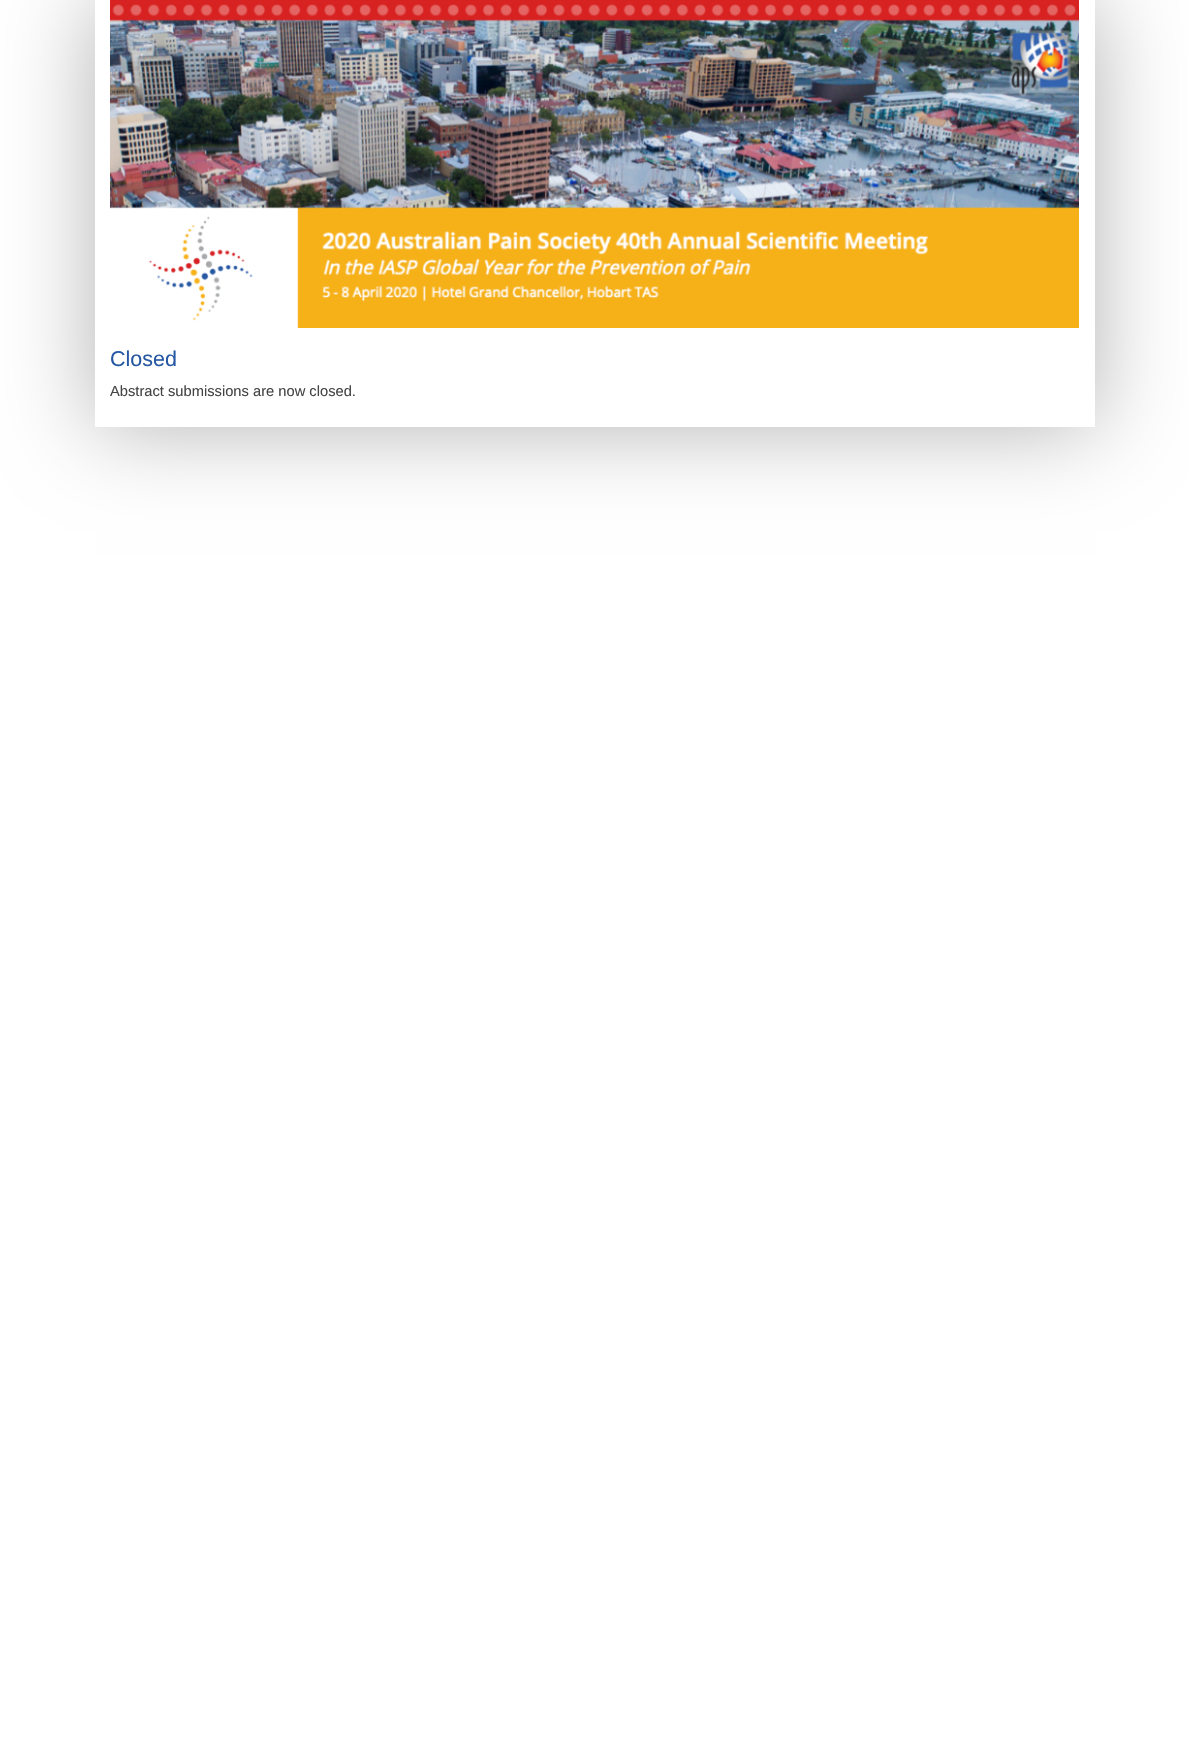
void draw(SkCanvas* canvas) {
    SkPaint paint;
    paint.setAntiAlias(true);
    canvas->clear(0xFFFFFFFF);
    canvas->save();
    canvas->clipPath(SkPathBuilder(SkPathFillType::kEvenOdd).moveTo(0, 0).lineTo(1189, 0).lineTo(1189, 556).lineTo(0, 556).close().moveTo(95, 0).lineTo(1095, 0).lineTo(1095, 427).lineTo(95, 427).close().detach(), true);
    paint.setColor(0x4D000000);
    paint.setMaskFilter(SkMaskFilter::MakeBlur(kNormal_SkBlurStyle, 42.5f));
    canvas->drawRect(SkRect::MakeXYWH(95, 0, 1000, 427), paint);
    paint.setMaskFilter(nullptr);
    canvas->restore();
    canvas->drawImageRect(SkImages::DeferredFromEncodedData(SkData::MakeFromFileName("img1.png")), SkRect::MakeXYWH(110, 0, 969, 328), SkSamplingOptions());
    SkFont font1(fontMgr->matchFamilyStyle("Liberation Sans", SkFontStyle::Normal()), 21.5f);
    font1.setSubpixel(true);
    paint.setColor(0xFF2658A3);
    canvas->drawString("Closed", 110, 366, font1, paint);
    SkFont font2(fontMgr->matchFamilyStyle("Liberation Sans", SkFontStyle::Normal()), 14.7f);
    font2.setSubpixel(true);
    paint.setColor(0xFF444444);
    canvas->drawString("Abstract submissions are now closed.", 110, 396, font2, paint);
}
